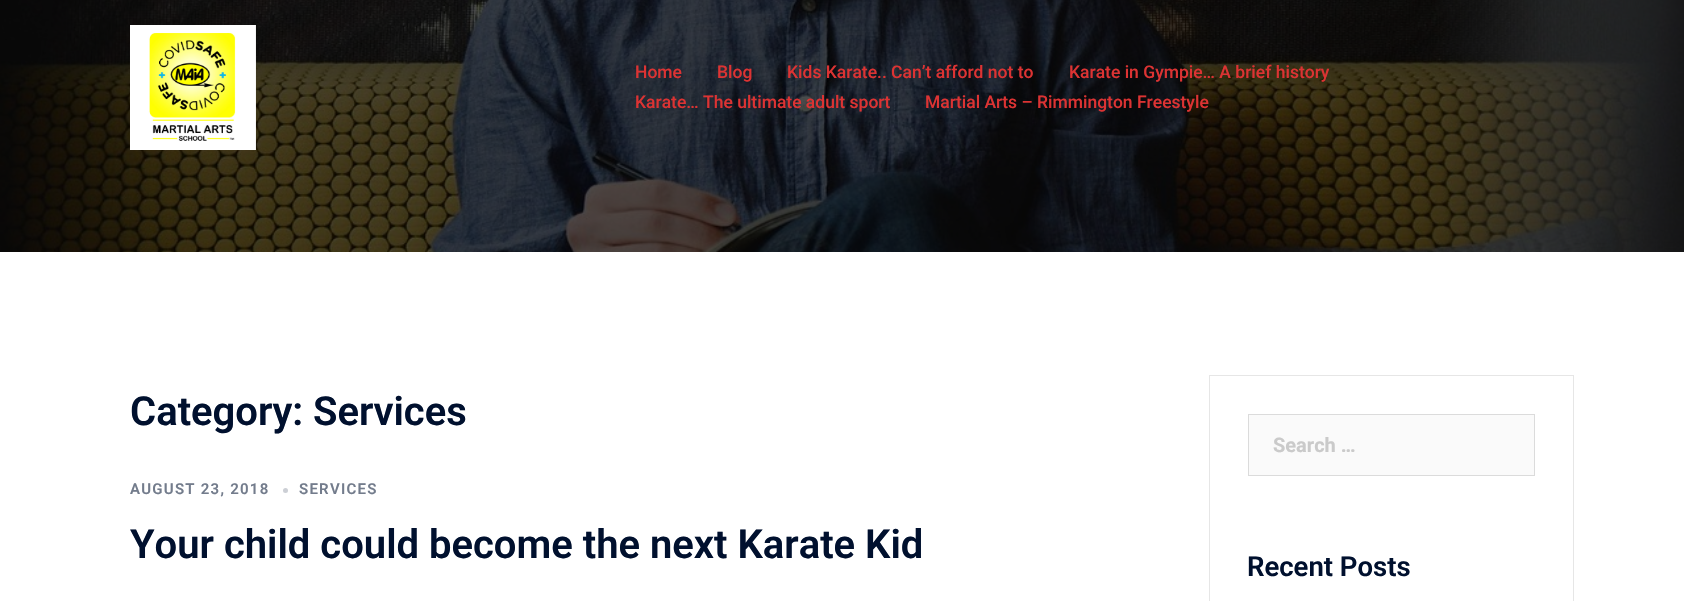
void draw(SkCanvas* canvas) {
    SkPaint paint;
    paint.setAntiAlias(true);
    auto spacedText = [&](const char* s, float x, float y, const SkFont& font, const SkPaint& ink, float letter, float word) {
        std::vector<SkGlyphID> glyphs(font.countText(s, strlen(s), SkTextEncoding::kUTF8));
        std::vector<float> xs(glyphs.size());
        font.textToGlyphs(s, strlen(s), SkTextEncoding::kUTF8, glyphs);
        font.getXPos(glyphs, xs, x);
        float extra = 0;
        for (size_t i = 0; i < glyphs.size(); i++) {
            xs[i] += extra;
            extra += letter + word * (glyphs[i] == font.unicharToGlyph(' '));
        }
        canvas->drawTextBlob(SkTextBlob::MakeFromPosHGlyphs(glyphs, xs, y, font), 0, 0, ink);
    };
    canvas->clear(0xFFFFFFFF);
    canvas->drawImageRect(SkImages::DeferredFromEncodedData(SkData::MakeFromFileName("img1.png")), SkRect::MakeXYWH(0, 0, 1684, 252), SkSamplingOptions());
    canvas->drawImageRect(SkImages::DeferredFromEncodedData(SkData::MakeFromFileName("img2.png")), SkRect::MakeXYWH(130, 25, 126, 125), SkSamplingOptions());
    SkFont font1(fontMgr->matchFamilyStyle("Roboto", SkFontStyle(500, SkFontStyle::kNormal_Width, SkFontStyle::kUpright_Slant)), 17.5f);
    font1.setSubpixel(true);
    paint.setColor(0xFFDD3333);
    canvas->drawString("Home", 635, 78, font1, paint);
    canvas->drawString("Blog", 717, 78, font1, paint);
    canvas->drawString("Kids Karate.. Can’t afford not to", 787, 78, font1, paint);
    canvas->drawString("Karate in Gympie… A brief history", 1069, 78, font1, paint);
    canvas->drawString("Karate… The ultimate adult sport", 635, 108, font1, paint);
    canvas->drawString("Martial Arts – Rimmington Freestyle", 925, 108, font1, paint);
    SkFont font2(fontMgr->matchFamilyStyle("Roboto", SkFontStyle(600, SkFontStyle::kNormal_Width, SkFontStyle::kUpright_Slant)), 40);
    font2.setSubpixel(true);
    paint.setColor(0xFF00102E);
    canvas->drawString("Category: Services", 130, 425, font2, paint);
    SkFont font3(fontMgr->matchFamilyStyle("Roboto", SkFontStyle(600, SkFontStyle::kNormal_Width, SkFontStyle::kUpright_Slant)), 15);
    font3.setSubpixel(true);
    paint.setColor(0xFF737C8C);
    spacedText("AUGUST 23, 2018", 130, 494, font3, paint, 1.25f, 0);
    paint.setColor(0xFFCCCFD5);
    canvas->drawCircle(285.5f, 490.5f, 2.5f, paint);
    paint.setColor(0xFF737C8C);
    spacedText("SERVICES", 299, 494, font3, paint, 1.25f, 0);
    paint.setColor(0xFF00102E);
    canvas->drawString("Your child could become the next Karate Kid", 130, 558, font2, paint);
    paint.setStyle(SkPaint::kStroke_Style);
    paint.setStrokeWidth(1);
    paint.setColor(0xFFE6E6E6);
    canvas->drawRect(SkRect::MakeXYWH(1209.5f, 375.5f, 364, 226), paint);
    paint.setStyle(SkPaint::kFill_Style);
    paint.setColor(0xFFFAFAFA);
    canvas->drawRect(SkRect::MakeXYWH(1248.5f, 414.5f, 286, 61), paint);
    paint.setStyle(SkPaint::kStroke_Style);
    paint.setColor(0xFFDBDBDB);
    canvas->drawRect(SkRect::MakeXYWH(1248.5f, 414.5f, 286, 61), paint);
    SkFont font4(fontMgr->matchFamilyStyle("Roboto", SkFontStyle::Bold()), 20);
    font4.setSubpixel(true);
    paint.setStyle(SkPaint::kFill_Style);
    paint.setColor(0xFFCACACA);
    canvas->drawString("Search …", 1273, 452, font4, paint);
    SkFont font5(fontMgr->matchFamilyStyle("Roboto", SkFontStyle(600, SkFontStyle::kNormal_Width, SkFontStyle::kUpright_Slant)), 27.5f);
    font5.setSubpixel(true);
    paint.setColor(0xFF00102E);
    canvas->drawString("Recent Posts", 1247, 576, font5, paint);
}
